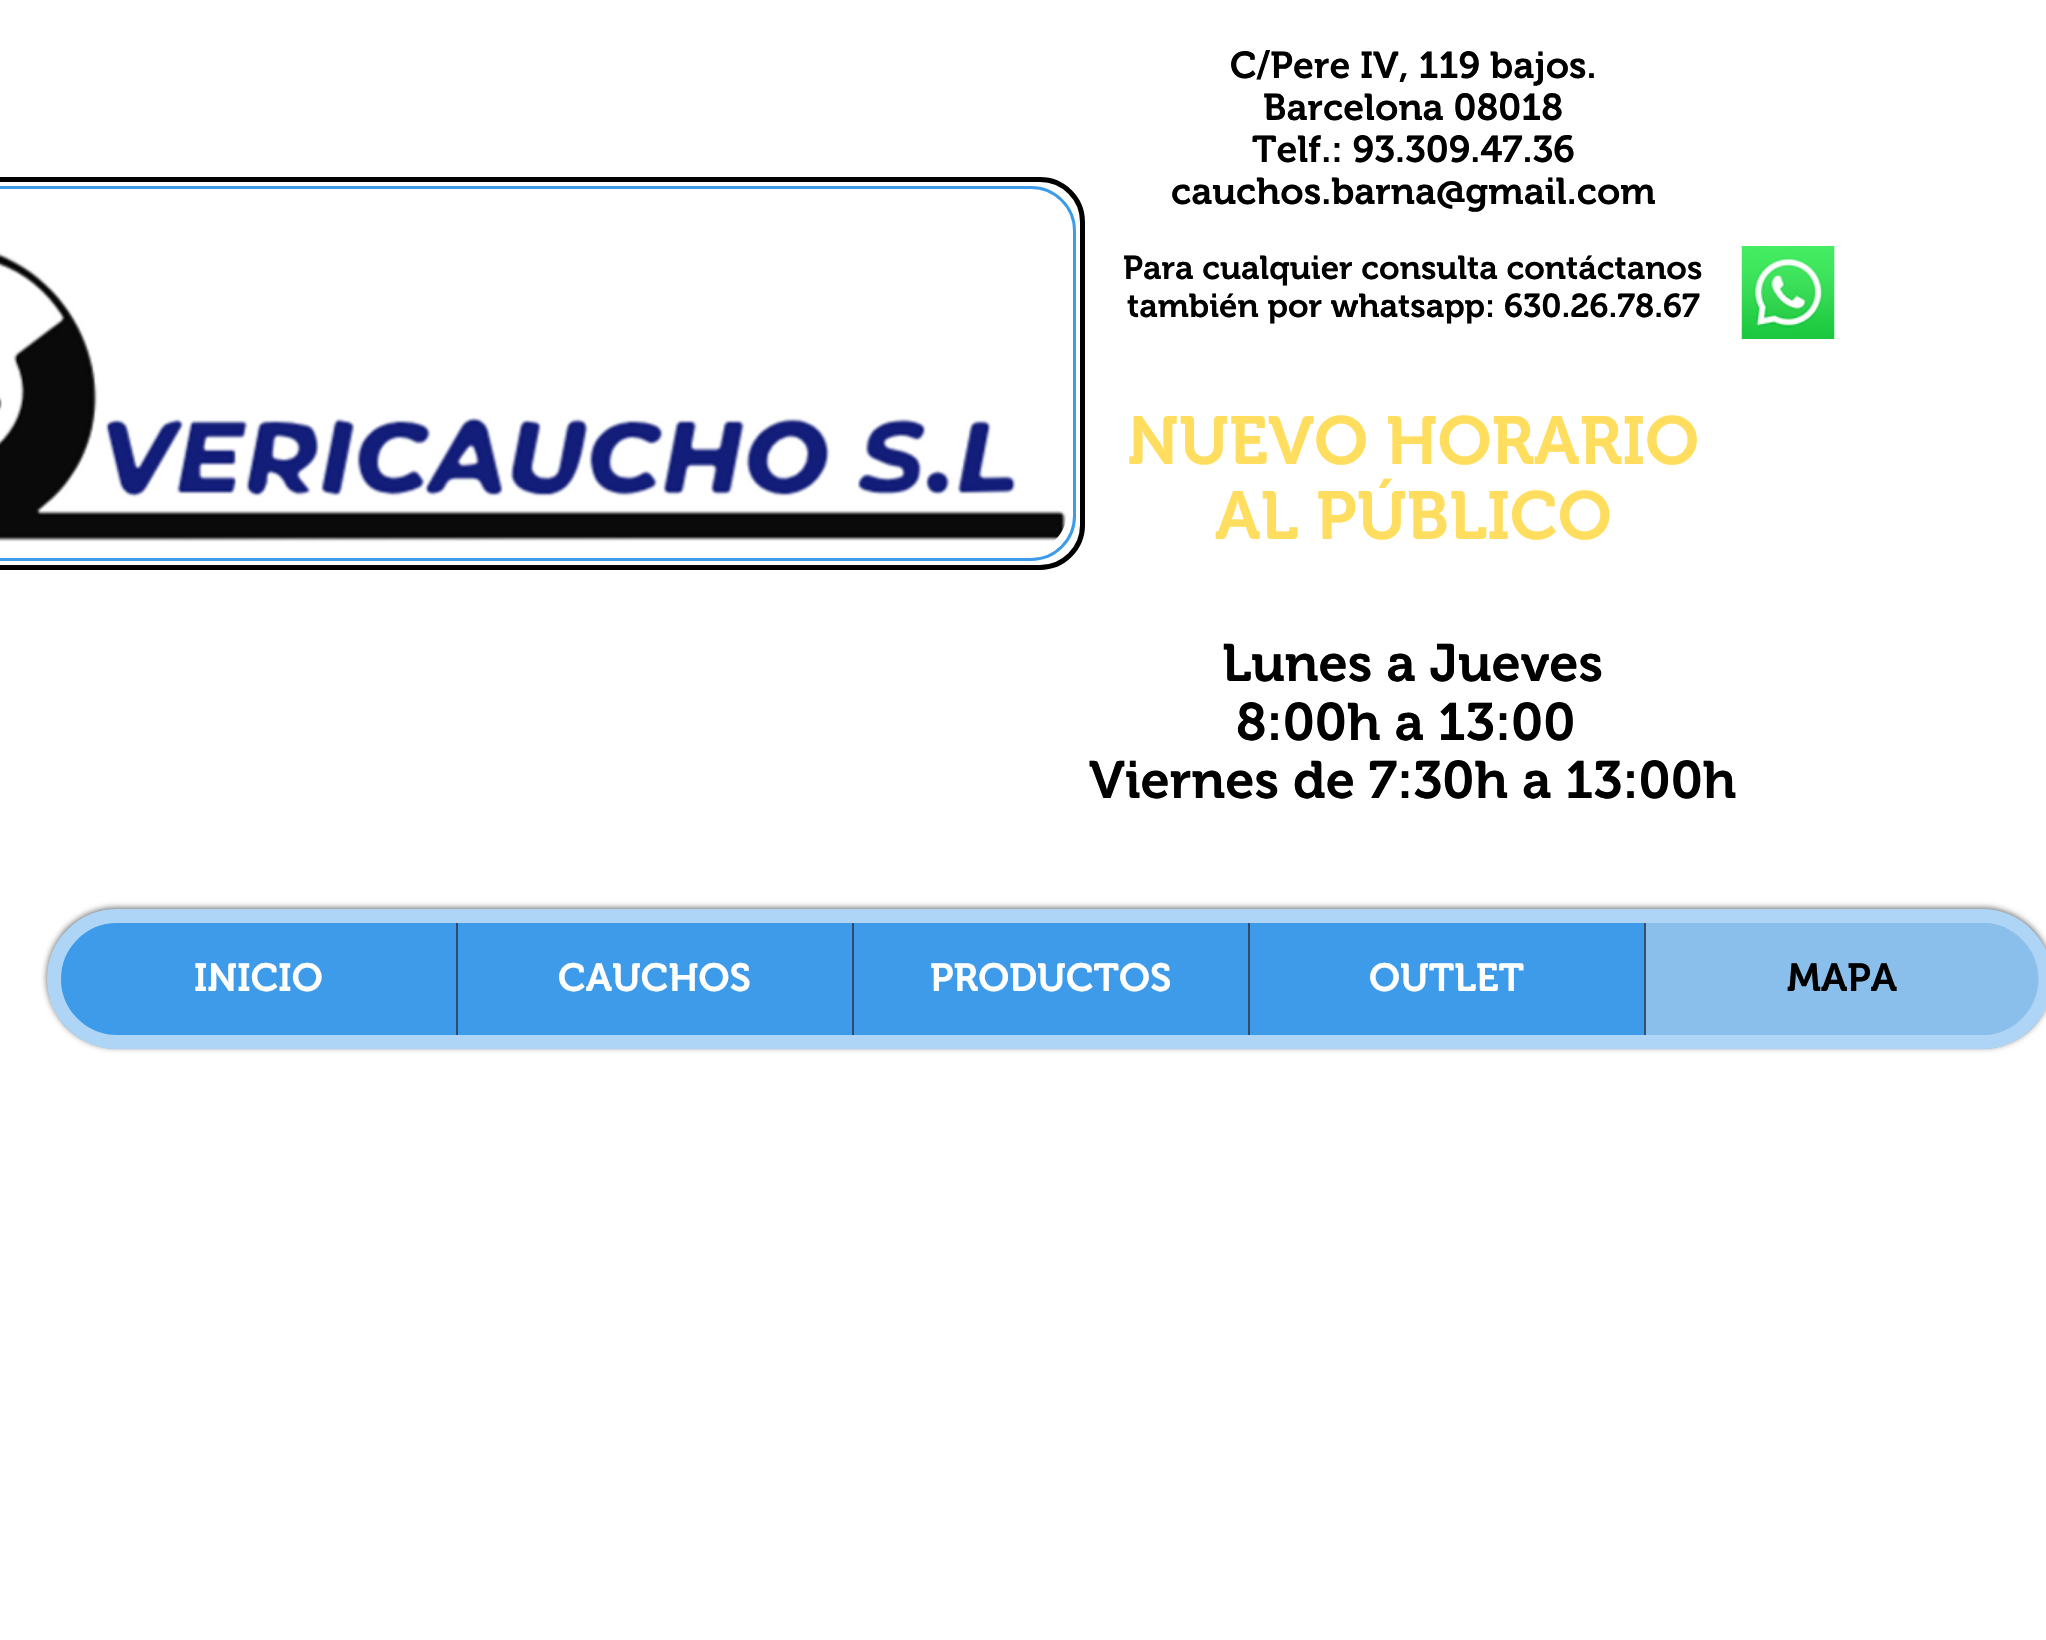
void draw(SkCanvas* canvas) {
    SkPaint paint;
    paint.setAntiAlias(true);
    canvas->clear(0xFFFFFFFF);
    paint.setStyle(SkPaint::kStroke_Style);
    paint.setStrokeWidth(5);
    paint.setColor(0xFF000000);
    canvas->drawRoundRect(SkRect::MakeXYWH(-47.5f, 179.5f, 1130, 388), 42.5f, 42.5f, paint);
    canvas->drawImageRect(SkImages::DeferredFromEncodedData(SkData::MakeFromFileName("img1.png")), SkRect::MakeXYWH(0, 252, 1067, 290), SkSamplingOptions());
    paint.setStrokeWidth(3);
    paint.setColor(0xFF3D9BE9);
    canvas->drawRoundRect(SkRect::MakeXYWH(-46.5f, 187.5f, 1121, 372), 43.5f, 43.5f, paint);
    SkFont font1(fontMgr->matchFamilyStyle("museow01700", SkFontStyle(600, SkFontStyle::kNormal_Width, SkFontStyle::kUpright_Slant)), 37.5f);
    font1.setSubpixel(true);
    paint.setStyle(SkPaint::kFill_Style);
    paint.setColor(0xFF000000);
    canvas->drawString("C/Pere IV, 119 bajos.", 1230, 78, font1, paint);
    canvas->drawString("Barcelona 08018", 1263, 120, font1, paint);
    canvas->drawString("Telf.: 93.309.47.36", 1252, 162, font1, paint);
    canvas->drawString("cauchos.barna@gmail.com", 1171, 204, font1, paint);
    SkFont font2(fontMgr->matchFamilyStyle("museow01700", SkFontStyle(600, SkFontStyle::kNormal_Width, SkFontStyle::kUpright_Slant)), 33);
    font2.setSubpixel(true);
    canvas->drawString("Para cualquier consulta contáctanos", 1123, 279, font2, paint);
    canvas->drawString("también por whatsapp: 630.26.78.67", 1127, 317, font2, paint);
    SkFont font3(fontMgr->matchFamilyStyle("museow01700", SkFontStyle(600, SkFontStyle::kNormal_Width, SkFontStyle::kUpright_Slant)), 67.5f);
    font3.setSubpixel(true);
    paint.setColor(0xFFFFDE5F);
    canvas->drawString("NUEVO HORARIO", 1127, 464, font3, paint);
    canvas->drawString("AL PÚBLICO", 1215, 539, font3, paint);
    SkFont font4(fontMgr->matchFamilyStyle("museow01700", SkFontStyle(600, SkFontStyle::kNormal_Width, SkFontStyle::kUpright_Slant)), 52.5f);
    font4.setSubpixel(true);
    paint.setColor(0xFF000000);
    canvas->drawString("Lunes a Jueves", 1222, 681, font4, paint);
    canvas->drawString("8:00h a 13:00", 1236, 740, font4, paint);
    canvas->drawString("Viernes de 7:30h a 13:00h", 1089, 798, font4, paint);
    canvas->drawImageRect(SkImages::DeferredFromEncodedData(SkData::MakeFromFileName("img2.png")), SkRect::MakeXYWH(1741, 246, 94, 93), SkSamplingOptions());
    paint.setColor(0x99000000);
    paint.setMaskFilter(SkMaskFilter::MakeBlur(kNormal_SkBlurStyle, 3));
    canvas->drawRoundRect(SkRect::MakeXYWH(47, 908, 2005, 139), 69.5f, 69.5f, paint);
    paint.setMaskFilter(nullptr);
    paint.setColor(0xFF3D9BE9);
    canvas->drawRoundRect(SkRect::MakeXYWH(47, 909, 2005, 140), 70, 70, paint);
    paint.setStyle(SkPaint::kStroke_Style);
    paint.setStrokeWidth(14);
    paint.setColor(0x94FFFFFF);
    canvas->drawRoundRect(SkRect::MakeXYWH(54, 916, 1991, 126), 63, 63, paint);
    SkFont font5(fontMgr->matchFamilyStyle("museow01700", SkFontStyle(600, SkFontStyle::kNormal_Width, SkFontStyle::kUpright_Slant)), 39);
    font5.setSubpixel(true);
    paint.setStyle(SkPaint::kFill_Style);
    paint.setColor(0xFFFFFFFF);
    canvas->drawString("INICIO", 194, 991, font5, paint);
    paint.setColor(0xFF334B68);
    canvas->drawRect(SkRect::MakeXYWH(456, 923, 2, 112), paint);
    paint.setColor(0xFFFFFFFF);
    canvas->drawString("CAUCHOS", 558, 991, font5, paint);
    paint.setColor(0xFF334B68);
    canvas->drawRect(SkRect::MakeXYWH(852, 923, 2, 112), paint);
    paint.setColor(0xFFFFFFFF);
    canvas->drawString("PRODUCTOS", 930, 991, font5, paint);
    paint.setColor(0xFF334B68);
    canvas->drawRect(SkRect::MakeXYWH(1248, 923, 2, 112), paint);
    paint.setColor(0xFFFFFFFF);
    canvas->drawString("OUTLET", 1369, 991, font5, paint);
    paint.setColor(0xC9A0C9EB);
    canvas->drawPath(SkPathBuilder().moveTo(1644, 923).lineTo(1983, 923).cubicTo(2014, 923, 2039, 948, 2039, 979).cubicTo(2039, 1010, 2014, 1035, 1983, 1035).lineTo(1644, 1035).close().detach(), paint);
    paint.setColor(0xFF3C4F68);
    canvas->drawRect(SkRect::MakeXYWH(1644, 923, 2, 112), paint);
    paint.setColor(0xFF000000);
    canvas->drawString("MAPA", 1787, 991, font5, paint);
}
